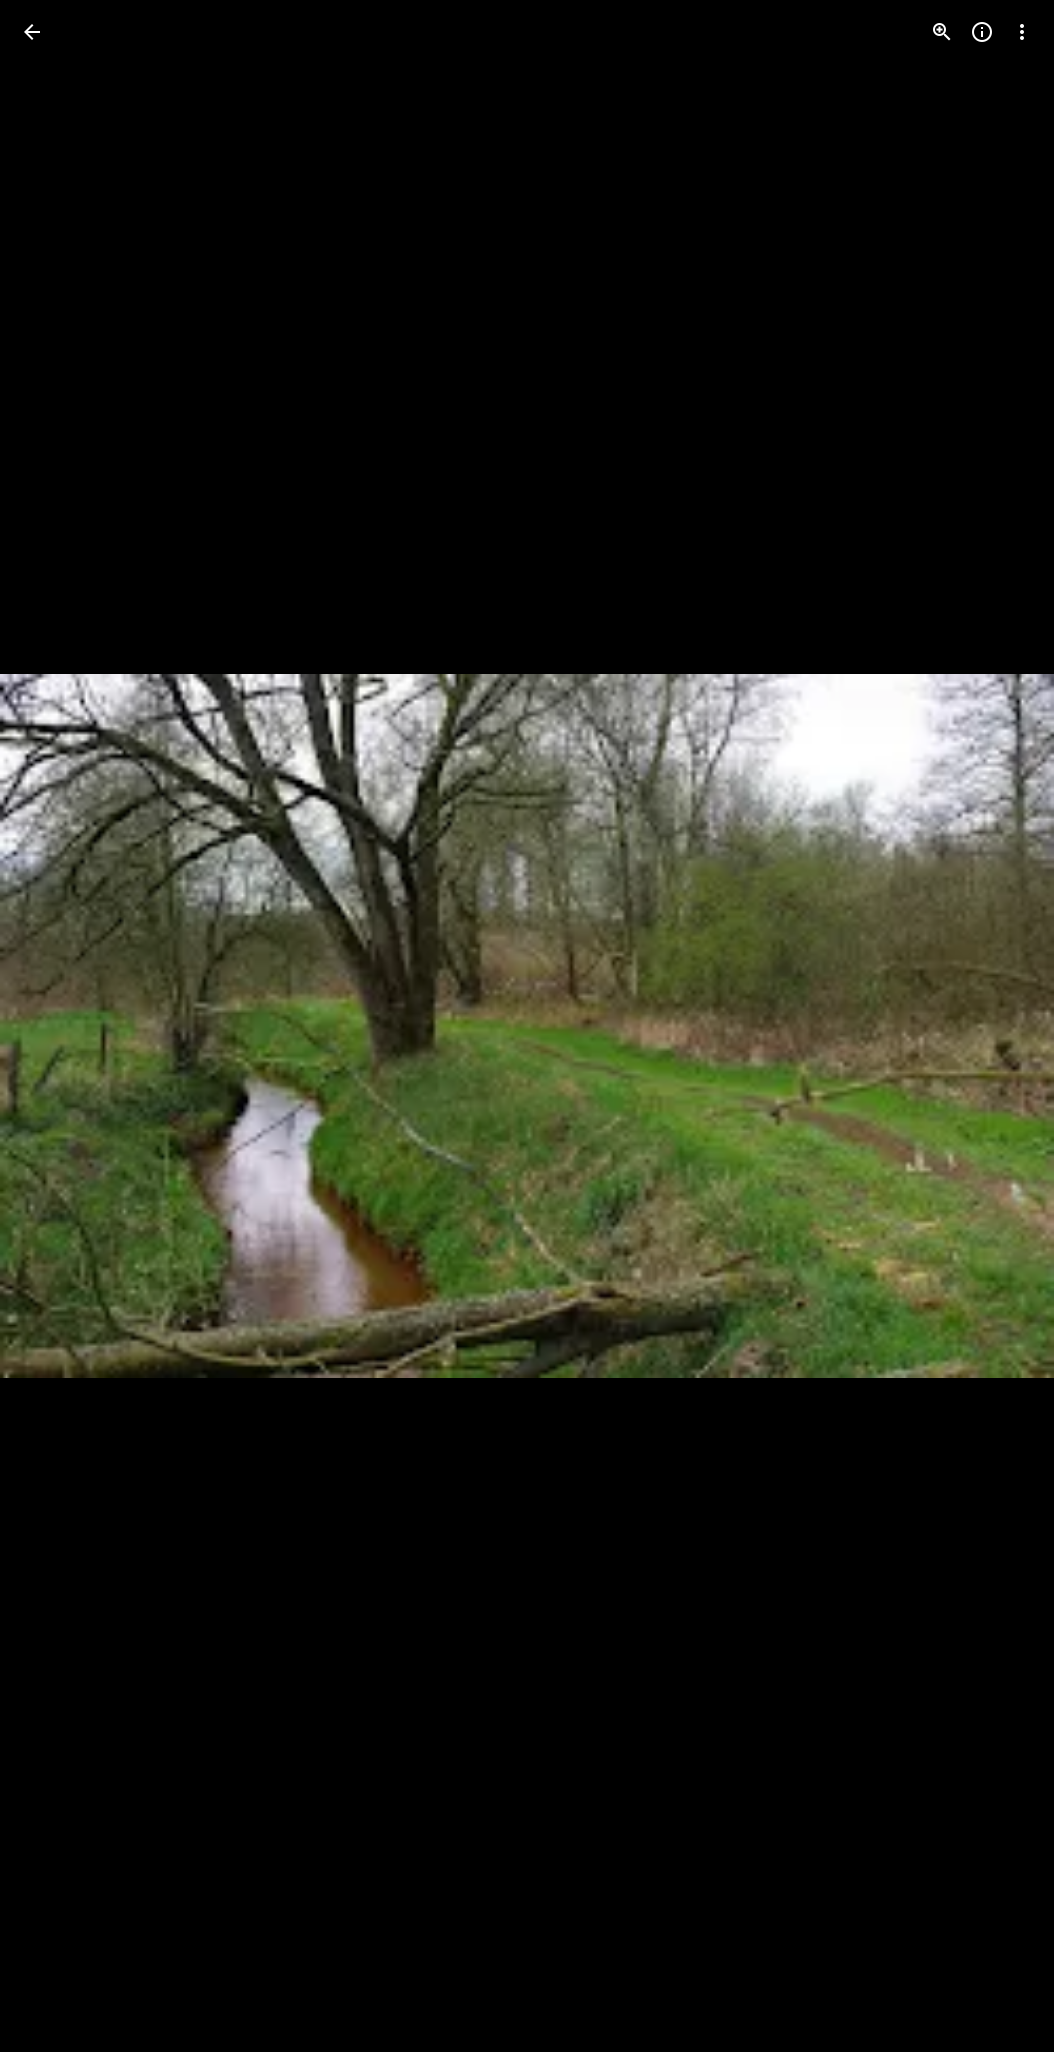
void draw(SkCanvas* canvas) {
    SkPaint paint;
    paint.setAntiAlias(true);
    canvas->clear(0xFF000000);
    canvas->drawImageRect(SkImages::DeferredFromEncodedData(SkData::MakeFromFileName("img1.png")), SkRect::MakeXYWH(24, 24, 16, 16), SkSamplingOptions());
    canvas->drawImageRect(SkImages::DeferredFromEncodedData(SkData::MakeFromFileName("img2.png")), SkRect::MakeXYWH(933, 23, 18, 18), SkSamplingOptions());
    canvas->drawImageRect(SkImages::DeferredFromEncodedData(SkData::MakeFromFileName("img3.png")), SkRect::MakeXYWH(972, 22, 20, 20), SkSamplingOptions());
    canvas->drawImageRect(SkImages::DeferredFromEncodedData(SkData::MakeFromFileName("img4.png")), SkRect::MakeXYWH(1020, 24, 4, 16), SkSamplingOptions());
    canvas->drawImageRect(SkImages::DeferredFromEncodedData(SkData::MakeFromFileName("img5.png")), SkRect::MakeXYWH(0, 674, 1054, 704), SkSamplingOptions());
}
